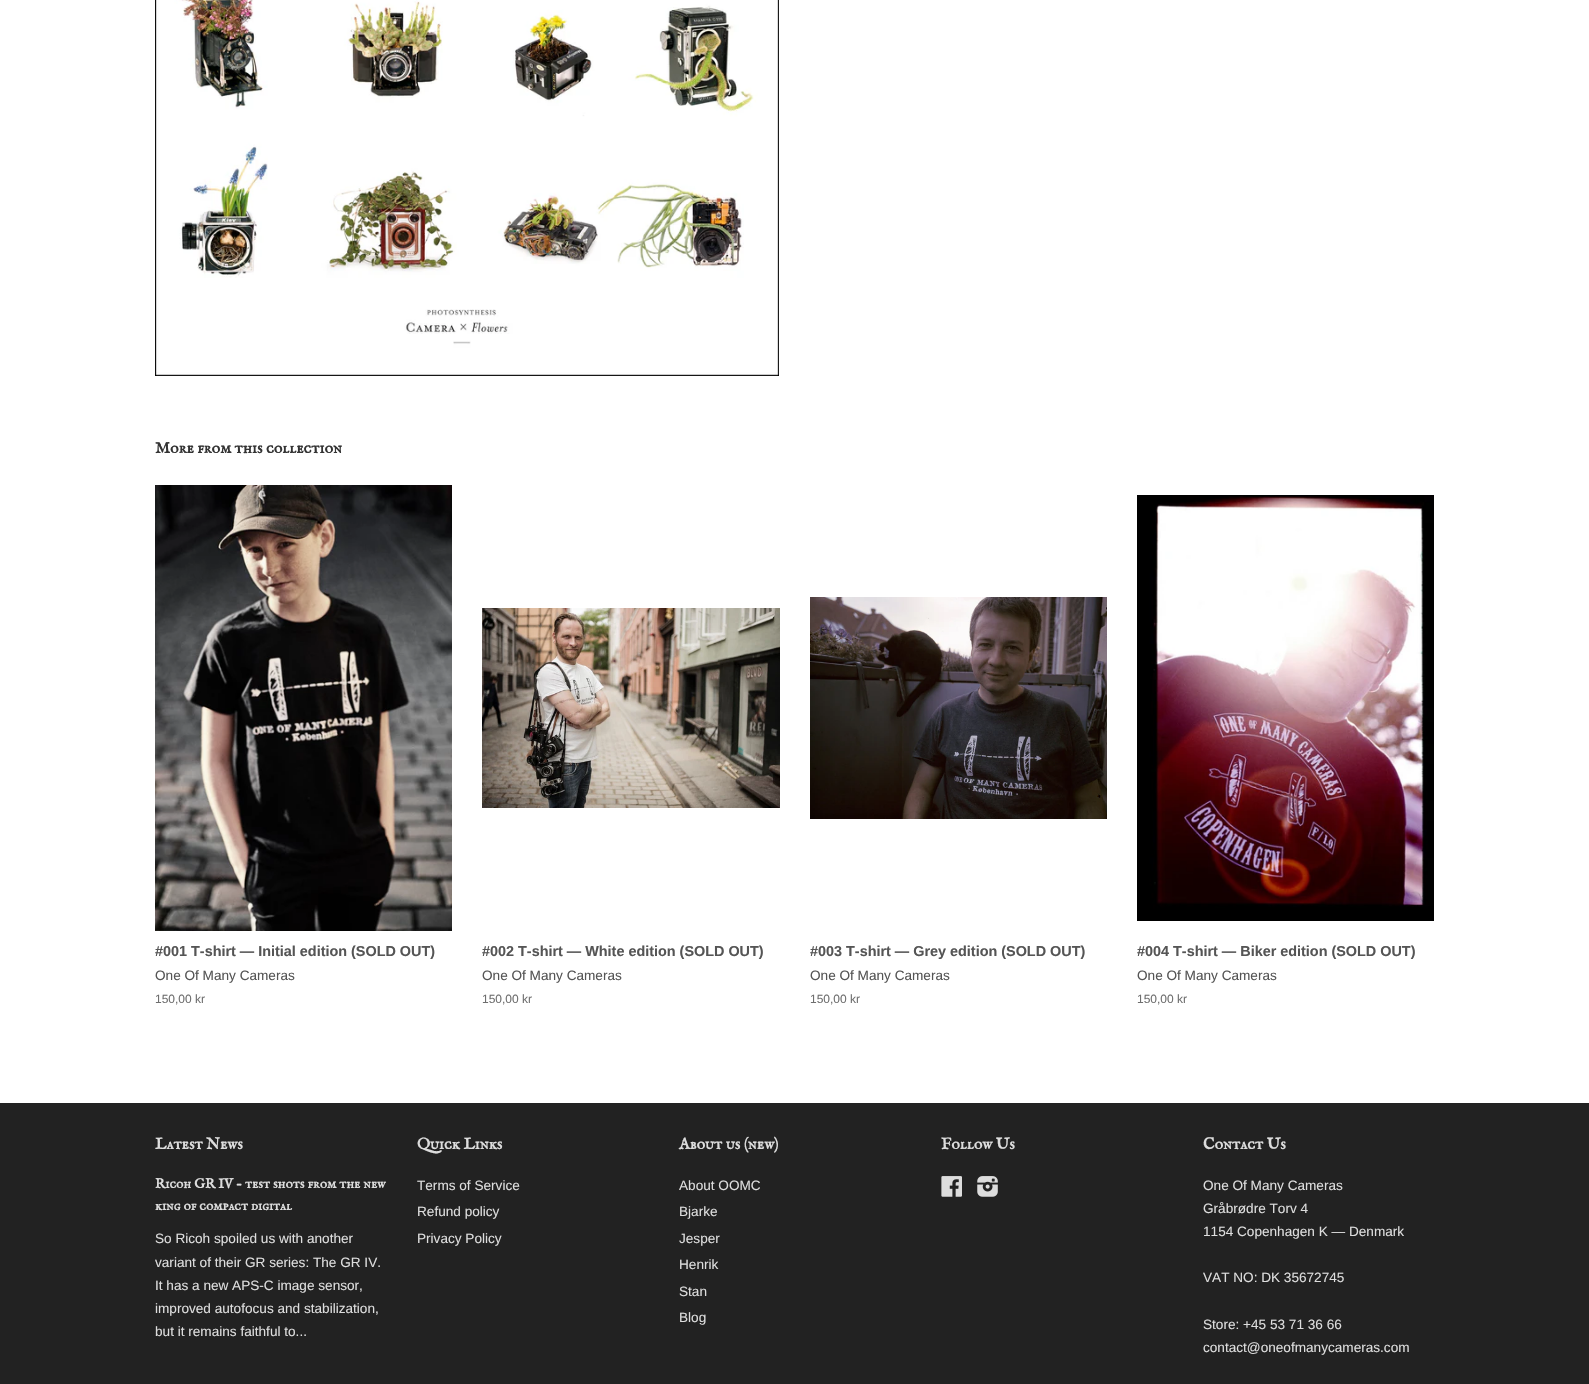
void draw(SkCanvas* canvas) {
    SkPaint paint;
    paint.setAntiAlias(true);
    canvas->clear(0xFFFFFFFF);
    canvas->drawImageRect(SkImages::DeferredFromEncodedData(SkData::MakeFromFileName("img1.png")), SkRect::MakeXYWH(155, 0, 624, 376), SkSamplingOptions());
    SkFont font1(fontMgr->matchFamilyStyle("IM FELL English SC", SkFontStyle::Bold()), 16);
    font1.setSubpixel(true);
    paint.setColor(0xFF333333);
    canvas->drawString("More from this collection", 155, 453, font1, paint);
    canvas->drawImageRect(SkImages::DeferredFromEncodedData(SkData::MakeFromFileName("img2.png")), SkRect::MakeXYWH(155, 485, 297, 446), SkSamplingOptions());
    SkFont font2(fontMgr->matchFamilyStyle("Liberation Sans", SkFontStyle::Bold()), 14.4f);
    font2.setSubpixel(true);
    paint.setColor(0xFF555555);
    canvas->drawString("#001 T-shirt — Initial edition (SOLD OUT)", 155, 956, font2, paint);
    SkFont font3(fontMgr->matchFamilyStyle("Liberation Sans", SkFontStyle::Normal()), 13.6f);
    font3.setSubpixel(true);
    canvas->drawString("One Of Many Cameras", 155, 980, font3, paint);
    SkFont font4(fontMgr->matchFamilyStyle("Liberation Sans", SkFontStyle::Normal()), 12);
    font4.setSubpixel(true);
    paint.setColor(0xFF6E6E6E);
    canvas->drawString("150,00 kr", 155, 1003, font4, paint);
    canvas->drawImageRect(SkImages::DeferredFromEncodedData(SkData::MakeFromFileName("img3.png")), SkRect::MakeXYWH(482, 608, 298, 200), SkSamplingOptions());
    paint.setColor(0xFF555555);
    canvas->drawString("#002 T-shirt — White edition (SOLD OUT)", 482, 956, font2, paint);
    canvas->drawString("One Of Many Cameras", 482, 980, font3, paint);
    paint.setColor(0xFF6E6E6E);
    canvas->drawString("150,00 kr", 482, 1003, font4, paint);
    canvas->drawImageRect(SkImages::DeferredFromEncodedData(SkData::MakeFromFileName("img4.png")), SkRect::MakeXYWH(810, 597, 297, 222), SkSamplingOptions());
    paint.setColor(0xFF555555);
    canvas->drawString("#003 T-shirt — Grey edition (SOLD OUT)", 810, 956, font2, paint);
    canvas->drawString("One Of Many Cameras", 810, 980, font3, paint);
    paint.setColor(0xFF6E6E6E);
    canvas->drawString("150,00 kr", 810, 1003, font4, paint);
    canvas->drawImageRect(SkImages::DeferredFromEncodedData(SkData::MakeFromFileName("img5.png")), SkRect::MakeXYWH(1137, 495, 297, 426), SkSamplingOptions());
    paint.setColor(0xFF555555);
    canvas->drawString("#004 T-shirt — Biker edition (SOLD OUT)", 1137, 956, font2, paint);
    canvas->drawString("One Of Many Cameras", 1137, 980, font3, paint);
    paint.setColor(0xFF6E6E6E);
    canvas->drawString("150,00 kr", 1137, 1003, font4, paint);
    paint.setColor(0xFF222222);
    canvas->drawRect(SkRect::MakeXYWH(0, 1103, 1589, 281), paint);
    paint.setColor(0xFFDDDDDD);
    canvas->drawString("Latest News", 155, 1149, font1, paint);
    SkFont font5(fontMgr->matchFamilyStyle("IM FELL English SC", SkFontStyle::Bold()), 13.6f);
    font5.setSubpixel(true);
    canvas->drawString("Ricoh GR IV - test shots from the new", 155, 1188, font5, paint);
    canvas->drawString("king of compact digital", 155, 1210, font5, paint);
    canvas->drawString("So Ricoh spoiled us with another", 155, 1243, font3, paint);
    canvas->drawString("variant of their GR series: The GR IV.", 155, 1267, font3, paint);
    canvas->drawString("It has a new APS-C image sensor,", 155, 1290, font3, paint);
    canvas->drawString("improved autofocus and stabilization,", 155, 1313, font3, paint);
    canvas->drawString("but it remains faithful to...", 155, 1336, font3, paint);
    canvas->drawString("Quick Links", 417, 1149, font1, paint);
    canvas->drawString("Terms of Service", 417, 1190, font3, paint);
    canvas->drawString("Refund policy", 417, 1216, font3, paint);
    canvas->drawString("Privacy Policy", 417, 1243, font3, paint);
    canvas->drawString("About us (new)", 679, 1149, font1, paint);
    canvas->drawString("About OOMC", 679, 1190, font3, paint);
    canvas->drawString("Bjarke", 679, 1216, font3, paint);
    canvas->drawString("Jesper", 679, 1243, font3, paint);
    canvas->drawString("Henrik", 679, 1269, font3, paint);
    canvas->drawString("Stan", 679, 1296, font3, paint);
    canvas->drawString("Blog", 679, 1322, font3, paint);
    canvas->drawString("Follow Us", 941, 1149, font1, paint);
    canvas->drawImageRect(SkImages::DeferredFromEncodedData(SkData::MakeFromFileName("img6.png")), SkRect::MakeXYWH(941, 1176, 21, 21), SkSamplingOptions());
    canvas->drawImageRect(SkImages::DeferredFromEncodedData(SkData::MakeFromFileName("img7.png")), SkRect::MakeXYWH(977, 1176, 21, 21), SkSamplingOptions());
    canvas->drawString("Contact Us", 1203, 1149, font1, paint);
    canvas->drawString("One Of Many Cameras", 1203, 1190, font3, paint);
    canvas->drawString("Gråbrødre Torv 4", 1203, 1213, font3, paint);
    canvas->drawString("1154 Copenhagen K — Denmark", 1203, 1236, font3, paint);
    canvas->drawString("VAT NO: DK 35672745", 1203, 1282, font3, paint);
    canvas->drawString("Store: +45 53 71 36 66", 1203, 1329, font3, paint);
    canvas->drawString("contact@oneofmanycameras.com", 1203, 1352, font3, paint);
}
